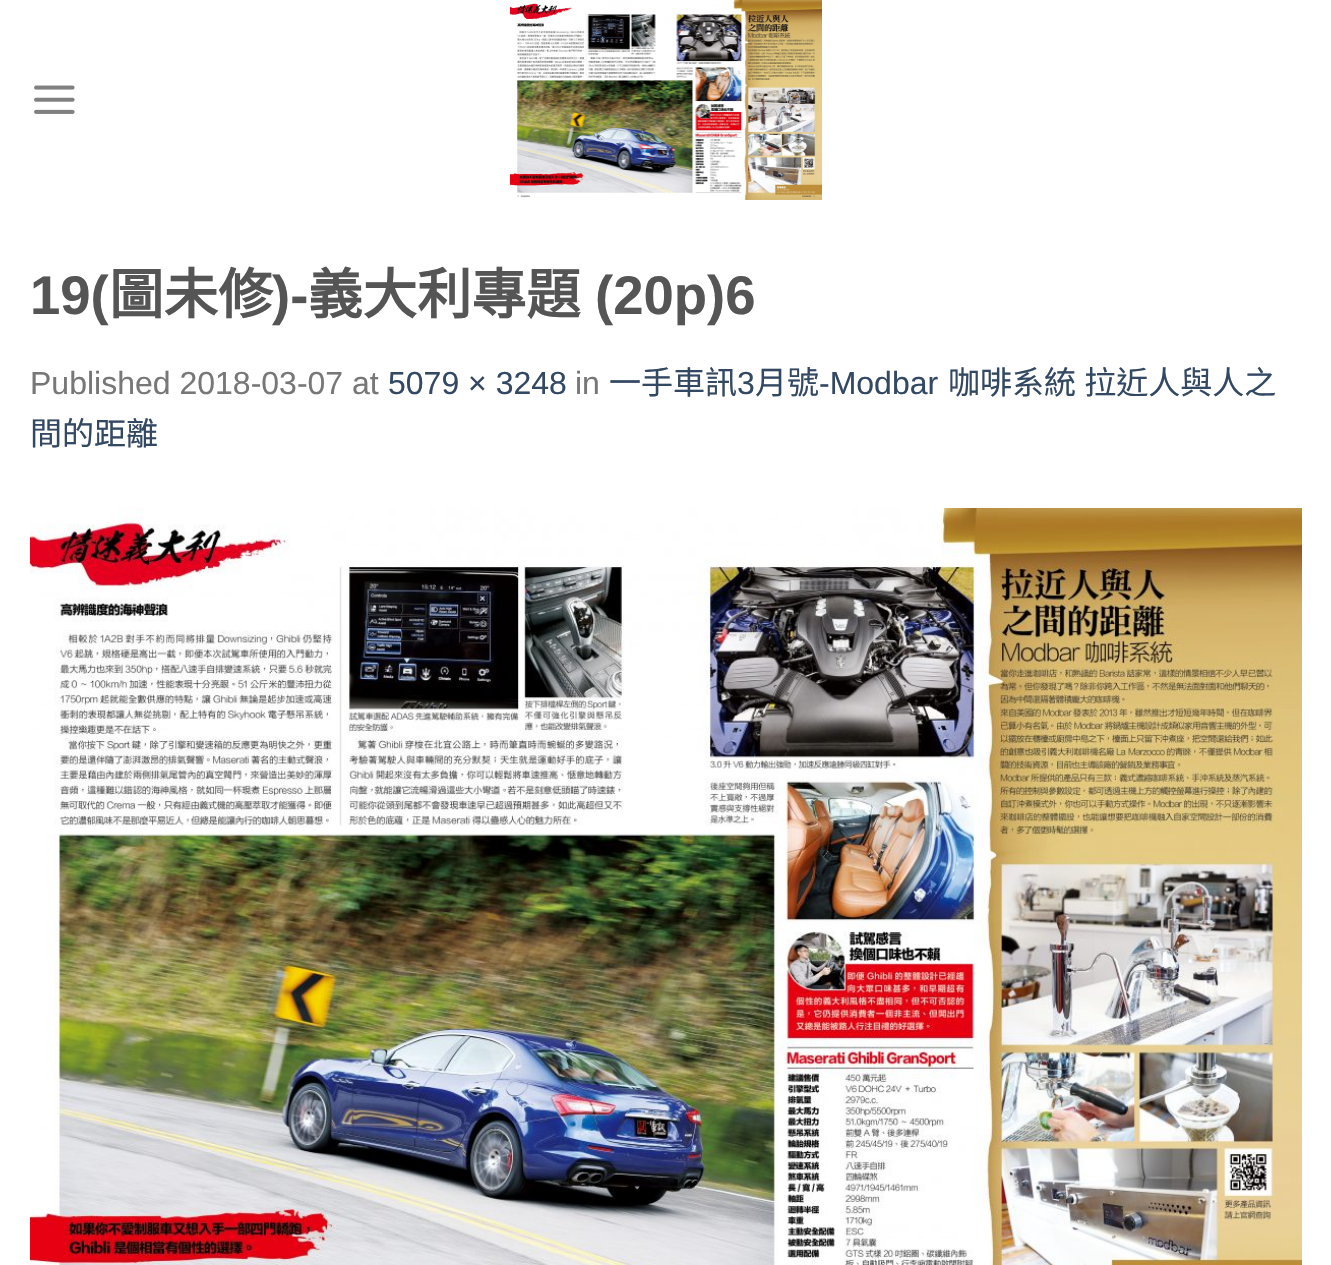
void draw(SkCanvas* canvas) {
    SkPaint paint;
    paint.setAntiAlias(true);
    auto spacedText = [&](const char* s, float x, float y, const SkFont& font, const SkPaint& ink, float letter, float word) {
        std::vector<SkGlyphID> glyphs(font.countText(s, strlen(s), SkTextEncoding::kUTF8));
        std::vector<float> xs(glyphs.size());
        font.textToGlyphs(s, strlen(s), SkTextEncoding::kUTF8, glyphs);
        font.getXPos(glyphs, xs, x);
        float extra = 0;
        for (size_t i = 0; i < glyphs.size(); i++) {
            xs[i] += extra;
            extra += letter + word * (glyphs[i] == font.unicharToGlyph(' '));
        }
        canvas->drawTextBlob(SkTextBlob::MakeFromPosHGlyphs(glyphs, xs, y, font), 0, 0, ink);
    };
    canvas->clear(0xFFFFFFFF);
    canvas->drawImageRect(SkImages::DeferredFromEncodedData(SkData::MakeFromFileName("img1.png")), SkRect::MakeXYWH(34, 85, 41, 29), SkSamplingOptions());
    canvas->drawImageRect(SkImages::DeferredFromEncodedData(SkData::MakeFromFileName("img2.png")), SkRect::MakeXYWH(510, 0, 312, 200), SkSamplingOptions());
    SkFont font1(fontMgr->matchFamilyStyle("Liberation Sans", SkFontStyle::Bold()), 54.5f);
    font1.setSubpixel(true);
    paint.setColor(0xFF555555);
    canvas->drawString("19(", 30, 314, font1, paint);
    SkFont font2(fontMgr->matchFamilyStyle("Noto Sans CJK TC", SkFontStyle::Bold()), 54.5f);
    font2.setSubpixel(true);
    canvas->drawString("圖未修", 109, 314, font2, paint);
    canvas->drawString(")-", 272, 314, font1, paint);
    canvas->drawString("義大利專題", 308, 314, font2, paint);
    canvas->drawString("(20p)6", 595, 314, font1, paint);
    SkFont font3(fontMgr->matchFamilyStyle("Liberation Sans", SkFontStyle::Normal()), 32);
    font3.setSubpixel(true);
    paint.setColor(0xFF777777);
    canvas->drawString("Published 2018-03-07 at", 30, 394, font3, paint);
    paint.setColor(0xFF334862);
    canvas->drawString("5079 × 3248", 388, 394, font3, paint);
    paint.setColor(0xFF777777);
    canvas->drawString("in", 575, 394, font3, paint);
    SkFont font4(fontMgr->matchFamilyStyle("Noto Sans CJK TC", SkFontStyle::Normal()), 32);
    font4.setSubpixel(true);
    paint.setColor(0xFF334862);
    canvas->drawString("一手車訊", 609, 394, font4, paint);
    canvas->drawString("3", 737, 394, font3, paint);
    canvas->drawString("月號", 755, 394, font4, paint);
    canvas->drawString("-Modbar", 819, 394, font3, paint);
    spacedText("咖啡系統 拉近人與人之", 948, 394, font4, paint, 0, 1);
    canvas->drawString("間的距離", 30, 445, font4, paint);
    canvas->drawImageRect(SkImages::DeferredFromEncodedData(SkData::MakeFromFileName("img3.png")), SkRect::MakeXYWH(30, 508, 1272, 757), SkSamplingOptions());
}
